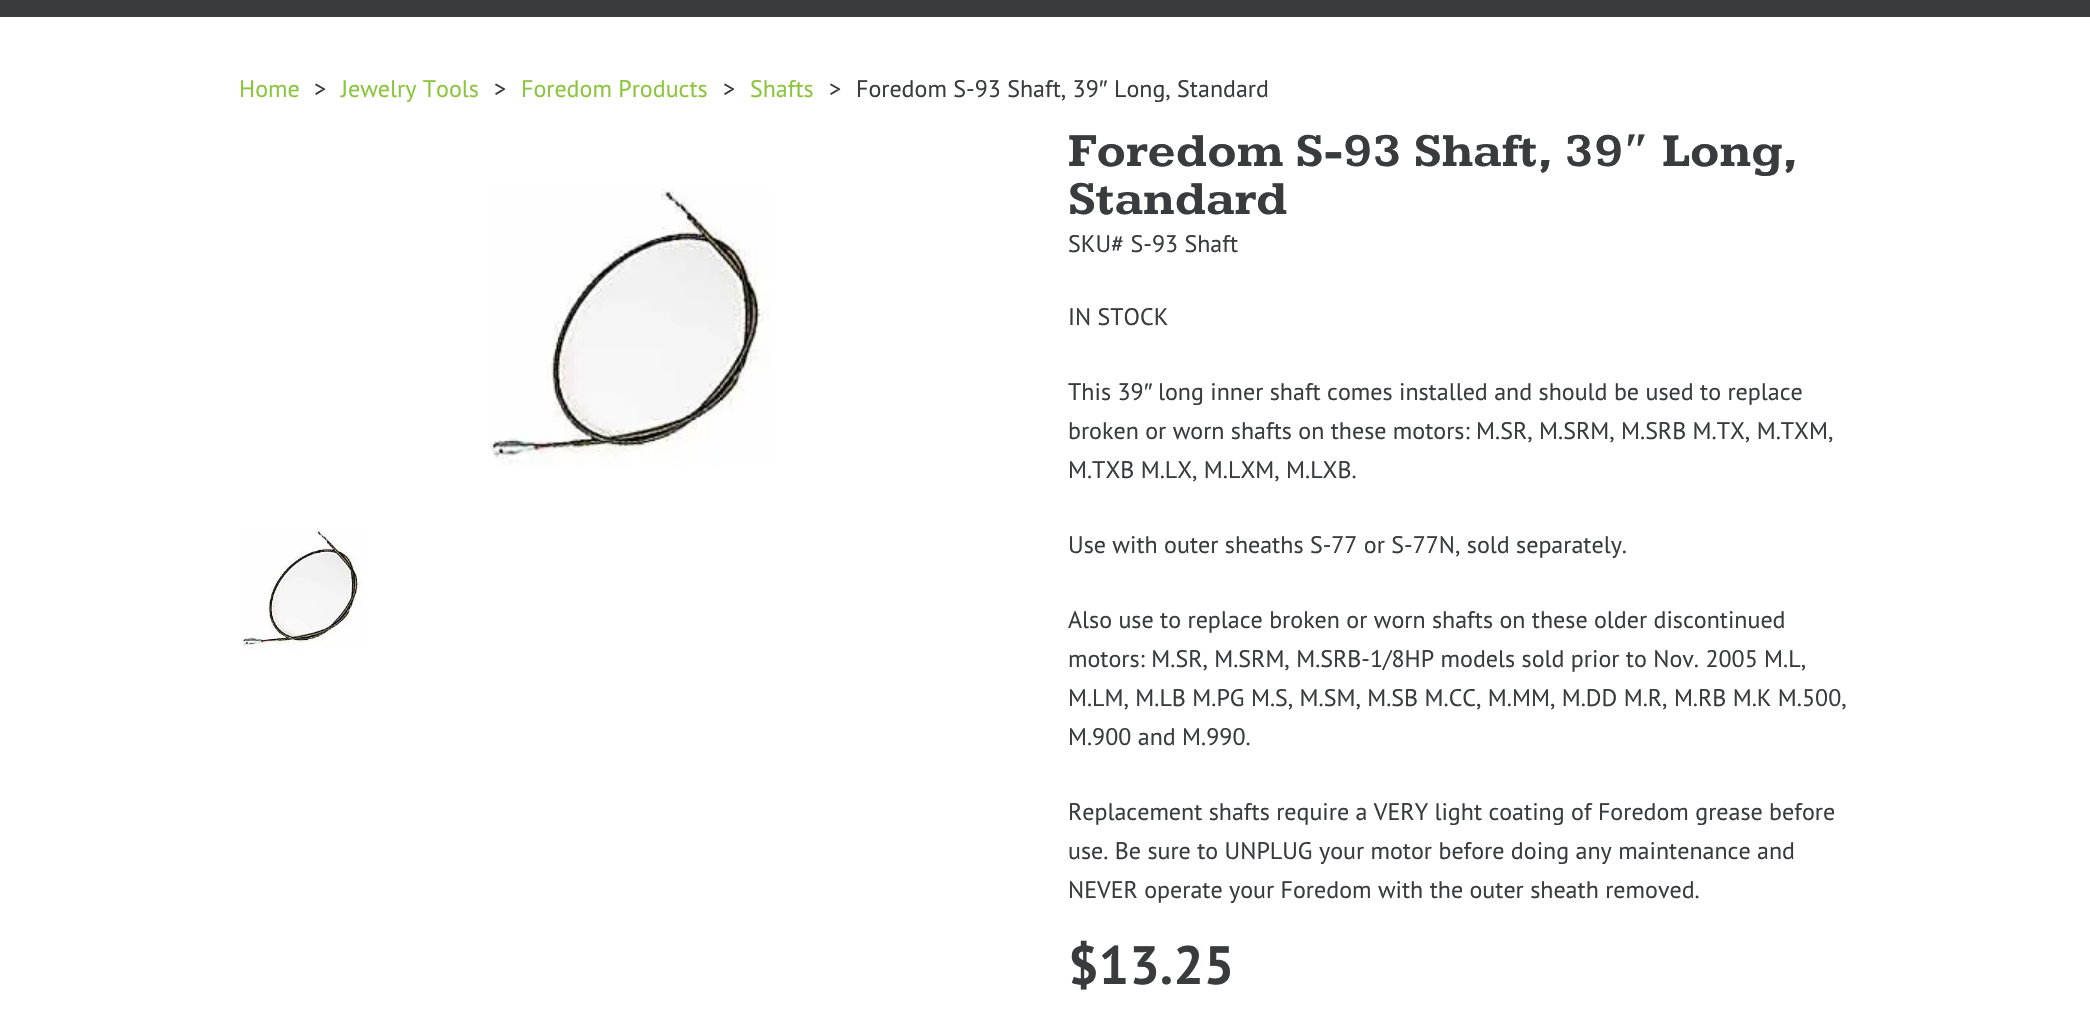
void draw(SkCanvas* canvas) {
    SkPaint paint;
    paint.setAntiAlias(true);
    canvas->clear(0xFFFFFFFF);
    paint.setColor(0xFF393B3C);
    canvas->drawRect(SkRect::MakeXYWH(0, 0, 2090, 17), paint);
    SkFont font1(fontMgr->matchFamilyStyle("PT Sans", SkFontStyle::Normal()), 24);
    font1.setSubpixel(true);
    paint.setColor(0xFF8BC53D);
    canvas->drawString("Home", 239, 97, font1, paint);
    paint.setColor(0xFF393B3C);
    canvas->drawString(">", 314, 97, font1, paint);
    paint.setColor(0xFF8BC53D);
    canvas->drawString("Jewelry Tools", 341, 97, font1, paint);
    paint.setColor(0xFF393B3C);
    canvas->drawString(">", 494, 97, font1, paint);
    paint.setColor(0xFF8BC53D);
    canvas->drawString("Foredom Products", 521, 97, font1, paint);
    paint.setColor(0xFF393B3C);
    canvas->drawString(">", 723, 97, font1, paint);
    paint.setColor(0xFF8BC53D);
    canvas->drawString("Shafts", 750, 97, font1, paint);
    paint.setColor(0xFF393B3C);
    canvas->drawString(">", 829, 97, font1, paint);
    canvas->drawString("Foredom S-93 Shaft, 39", 856, 97, font1, paint);
    SkFont font2(fontMgr->matchFamilyStyle("Liberation Sans", SkFontStyle::Normal()), 24);
    font2.setSubpixel(true);
    canvas->drawString("″", 1099, 97, font2, paint);
    canvas->drawString("Long, Standard", 1114, 97, font1, paint);
    canvas->drawImageRect(SkImages::DeferredFromEncodedData(SkData::MakeFromFileName("img1.png")), SkRect::MakeXYWH(490, 189, 280, 276), SkSamplingOptions());
    canvas->drawImageRect(SkImages::DeferredFromEncodedData(SkData::MakeFromFileName("img2.png")), SkRect::MakeXYWH(242, 530, 121, 119), SkSamplingOptions());
    SkFont font3(fontMgr->matchFamilyStyle("Kameron", SkFontStyle::Bold()), 48);
    font3.setSubpixel(true);
    canvas->drawString("Foredom S-93 Shaft, 39", 1068, 166, font3, paint);
    SkFont font4(fontMgr->matchFamilyStyle("Liberation Serif", SkFontStyle::Bold()), 48);
    font4.setSubpixel(true);
    canvas->drawString("″", 1623, 166, font4, paint);
    canvas->drawString("Long,", 1662, 166, font3, paint);
    canvas->drawString("Standard", 1068, 214, font3, paint);
    canvas->drawString("SKU# S-93 Shaft", 1068, 252, font1, paint);
    canvas->drawString("IN STOCK", 1068, 325, font1, paint);
    canvas->drawString("This 39", 1068, 400, font1, paint);
    canvas->drawString("″", 1144, 400, font2, paint);
    canvas->drawString("long inner shaft comes installed and should be used to replace", 1158, 400, font1, paint);
    canvas->drawString("broken or worn shafts on these motors: M.SR, M.SRM, M.SRB M.TX, M.TXM,", 1068, 439, font1, paint);
    canvas->drawString("M.TXB M.LX, M.LXM, M.LXB.", 1068, 478, font1, paint);
    canvas->drawString("Use with outer sheaths S-77 or S-77N, sold separately.", 1068, 553, font1, paint);
    canvas->drawString("Also use to replace broken or worn shafts on these older discontinued", 1068, 628, font1, paint);
    canvas->drawString("motors: M.SR, M.SRM, M.SRB-1/8HP models sold prior to Nov. 2005 M.L,", 1068, 667, font1, paint);
    canvas->drawString("M.LM, M.LB M.PG M.S, M.SM, M.SB M.CC, M.MM, M.DD M.R, M.RB M.K M.500,", 1068, 706, font1, paint);
    canvas->drawString("M.900 and M.990.", 1068, 745, font1, paint);
    canvas->drawString("Replacement shafts require a VERY light coating of Foredom grease before", 1068, 820, font1, paint);
    canvas->drawString("use. Be sure to UNPLUG your motor before doing any maintenance and", 1068, 859, font1, paint);
    canvas->drawString("NEVER operate your Foredom with the outer sheath removed.", 1068, 898, font1, paint);
    SkFont font5(fontMgr->matchFamilyStyle("PT Sans", SkFontStyle::Bold()), 54);
    font5.setSubpixel(true);
    canvas->drawString("$13.25", 1068, 984, font5, paint);
}
